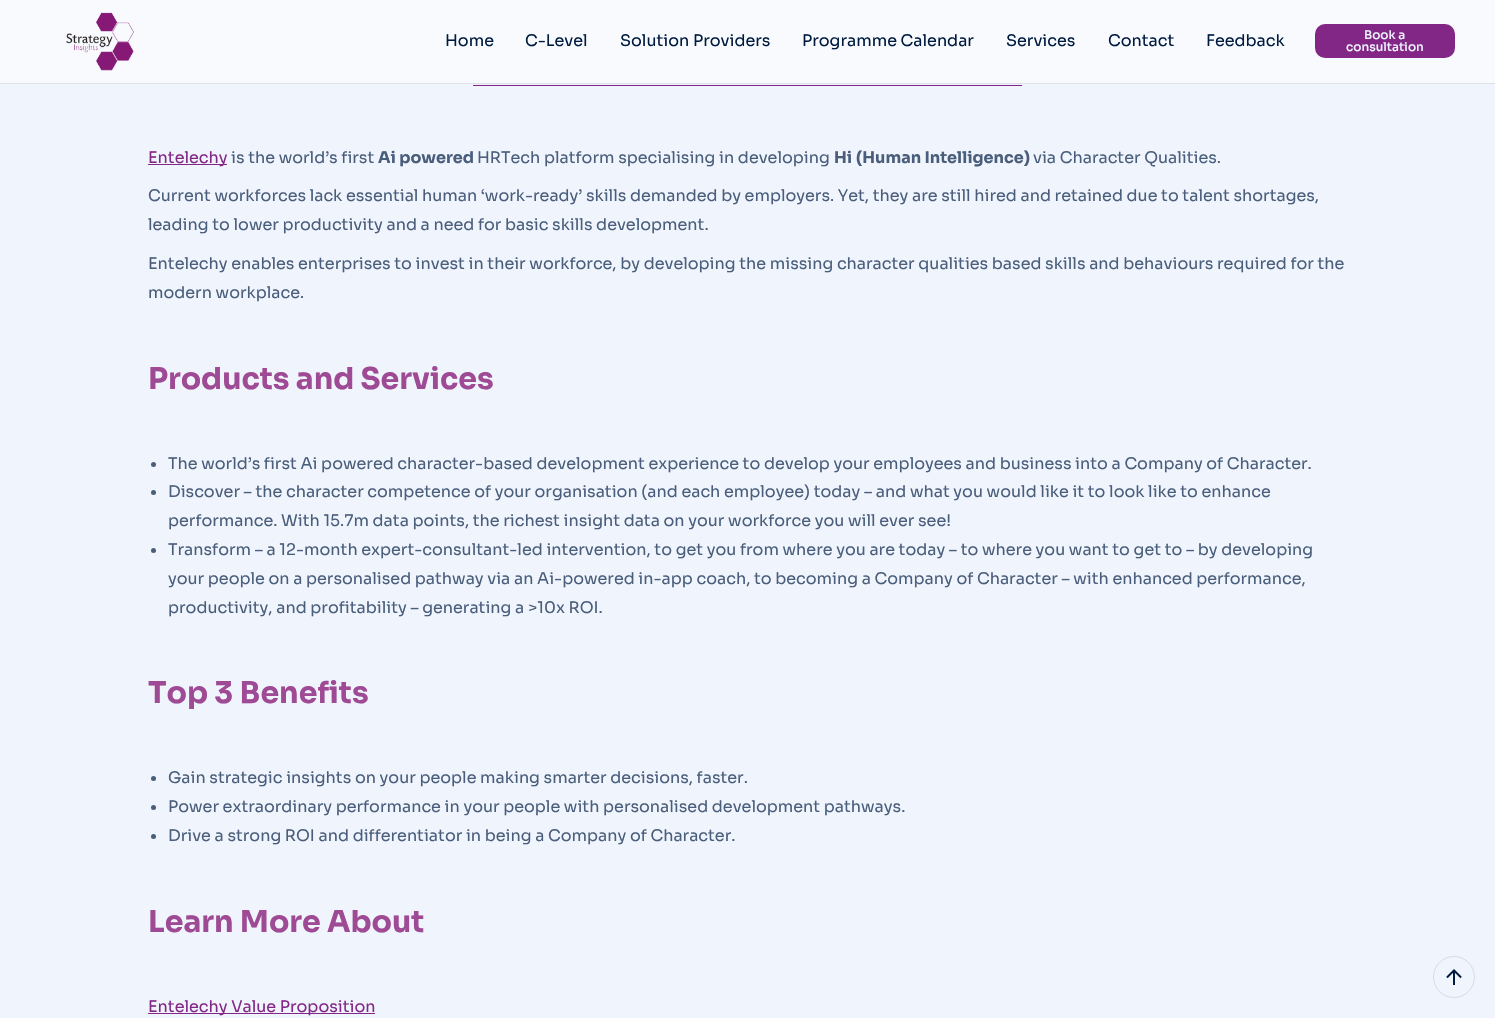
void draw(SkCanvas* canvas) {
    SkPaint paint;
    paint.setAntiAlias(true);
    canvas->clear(0xFFEFF4FD);
    paint.setColor(0xFFF8FAFE);
    canvas->drawRect(SkRect::MakeXYWH(0, 0, 1495, 83), paint);
    paint.setColor(0xFFDDE1E9);
    canvas->drawRect(SkRect::MakeXYWH(0, 83, 1495, 1), paint);
    canvas->drawImageRect(SkImages::DeferredFromEncodedData(SkData::MakeFromFileName("img1.png")), SkRect::MakeXYWH(66, 12, 68, 59), SkSamplingOptions());
    SkFont font1(fontMgr->matchFamilyStyle("Sora", SkFontStyle::Normal()), 16);
    font1.setSubpixel(true);
    paint.setColor(0xFF001A40);
    canvas->drawString("Home", 445, 46, font1, paint);
    canvas->drawString("C-Level", 525, 46, font1, paint);
    canvas->drawString("Solution Providers", 620, 46, font1, paint);
    canvas->drawString("Programme Calendar", 802, 46, font1, paint);
    canvas->drawString("Services", 1006, 46, font1, paint);
    canvas->drawString("Contact", 1108, 46, font1, paint);
    canvas->drawString("Feedback", 1206, 46, font1, paint);
    paint.setColor(0xFF832787);
    canvas->drawRoundRect(SkRect::MakeXYWH(1315, 24, 140, 34), 10, 10, paint);
    SkFont font2(fontMgr->matchFamilyStyle("Sora", SkFontStyle(500, SkFontStyle::kNormal_Width, SkFontStyle::kUpright_Slant)), 12);
    font2.setSubpixel(true);
    paint.setColor(0xFFEFF4FD);
    canvas->drawString("Book a", 1364, 39, font2, paint);
    canvas->drawString("consultation", 1346, 51, font2, paint);
    paint.setColor(0xFF832787);
    canvas->drawRect(SkRect::MakeXYWH(473, 85, 549, 1), paint);
    canvas->drawRect(SkRect::MakeXYWH(148, 164, 79, 1), paint);
    canvas->drawString("Entelechy", 148, 163, font1, paint);
    paint.setColor(0xFF4A5E7B);
    canvas->drawString("is the world’s first", 231, 163, font1, paint);
    SkFont font3(fontMgr->matchFamilyStyle("Sora", SkFontStyle::Bold()), 16);
    font3.setSubpixel(true);
    canvas->drawString("Ai powered", 378, 163, font3, paint);
    canvas->drawString("HRTech platform specialising in developing", 477, 163, font1, paint);
    canvas->drawString("Hi", 834, 163, font3, paint);
    canvas->drawString("(Human Intelligence)", 856, 163, font3, paint);
    canvas->drawString("via Character Qualities.", 1033, 163, font1, paint);
    canvas->drawString("Current workforces lack essential human ‘work-ready’ skills demanded by employers. Yet, they are still hired and retained due to talent shortages,", 148, 201, font1, paint);
    canvas->drawString("leading to lower productivity and a need for basic skills development.", 148, 230, font1, paint);
    canvas->drawString("Entelechy enables enterprises to invest in their workforce, by developing the missing character qualities based skills and behaviours required for the", 148, 269, font1, paint);
    canvas->drawString("modern workplace.", 148, 298, font1, paint);
    SkFont font4(fontMgr->matchFamilyStyle("Sora", SkFontStyle::Bold()), 30);
    font4.setSubpixel(true);
    paint.setColor(0xFF9E4A94);
    canvas->drawString("Products and Services", 148, 389, font4, paint);
    paint.setColor(0xFF4A5E7B);
    canvas->drawCircle(153.5f, 464.5f, 2.5f, paint);
    canvas->drawString("The world’s first Ai powered character-based development experience to develop your employees and business into a Company of Character.", 168, 469, font1, paint);
    canvas->drawCircle(153.5f, 492.5f, 2.5f, paint);
    canvas->drawString("Discover – the character competence of your organisation (and each employee) today – and what you would like it to look like to enhance", 168, 497, font1, paint);
    canvas->drawString("performance. With 15.7m data points, the richest insight data on your workforce you will ever see!", 168, 526, font1, paint);
    canvas->drawCircle(153.5f, 550.5f, 2.5f, paint);
    canvas->drawString("Transform – a 12-month expert-consultant-led intervention, to get you from where you are today – to where you want to get to – by developing", 168, 555, font1, paint);
    canvas->drawString("your people on a personalised pathway via an Ai-powered in-app coach, to becoming a Company of Character – with enhanced performance,", 168, 584, font1, paint);
    canvas->drawString("productivity, and profitability – generating a >10x ROI.", 168, 613, font1, paint);
    paint.setColor(0xFF9E4A94);
    canvas->drawString("Top 3 Benefits", 148, 703, font4, paint);
    paint.setColor(0xFF4A5E7B);
    canvas->drawCircle(153.5f, 778.5f, 2.5f, paint);
    canvas->drawString("Gain strategic insights on your people making smarter decisions, faster.", 168, 783, font1, paint);
    canvas->drawCircle(153.5f, 807.5f, 2.5f, paint);
    canvas->drawString("Power extraordinary performance in your people with personalised development pathways.", 168, 812, font1, paint);
    canvas->drawCircle(153.5f, 836.5f, 2.5f, paint);
    canvas->drawString("Drive a strong ROI and differentiator in being a Company of Character.", 168, 841, font1, paint);
    paint.setColor(0xFF9E4A94);
    canvas->drawString("Learn More About", 148, 932, font4, paint);
    paint.setColor(0xFF832787);
    canvas->drawRect(SkRect::MakeXYWH(148, 1013, 227, 1), paint);
    canvas->drawString("Entelechy Value Proposition", 148, 1012, font1, paint);
    paint.setStyle(SkPaint::kStroke_Style);
    paint.setStrokeWidth(1);
    paint.setColor(0xFFD5DCE8);
    canvas->drawCircle(1454, 977, 20.5f, paint);
    canvas->drawImageRect(SkImages::DeferredFromEncodedData(SkData::MakeFromFileName("img2.png")), SkRect::MakeXYWH(1446, 969, 16, 16), SkSamplingOptions());
}
